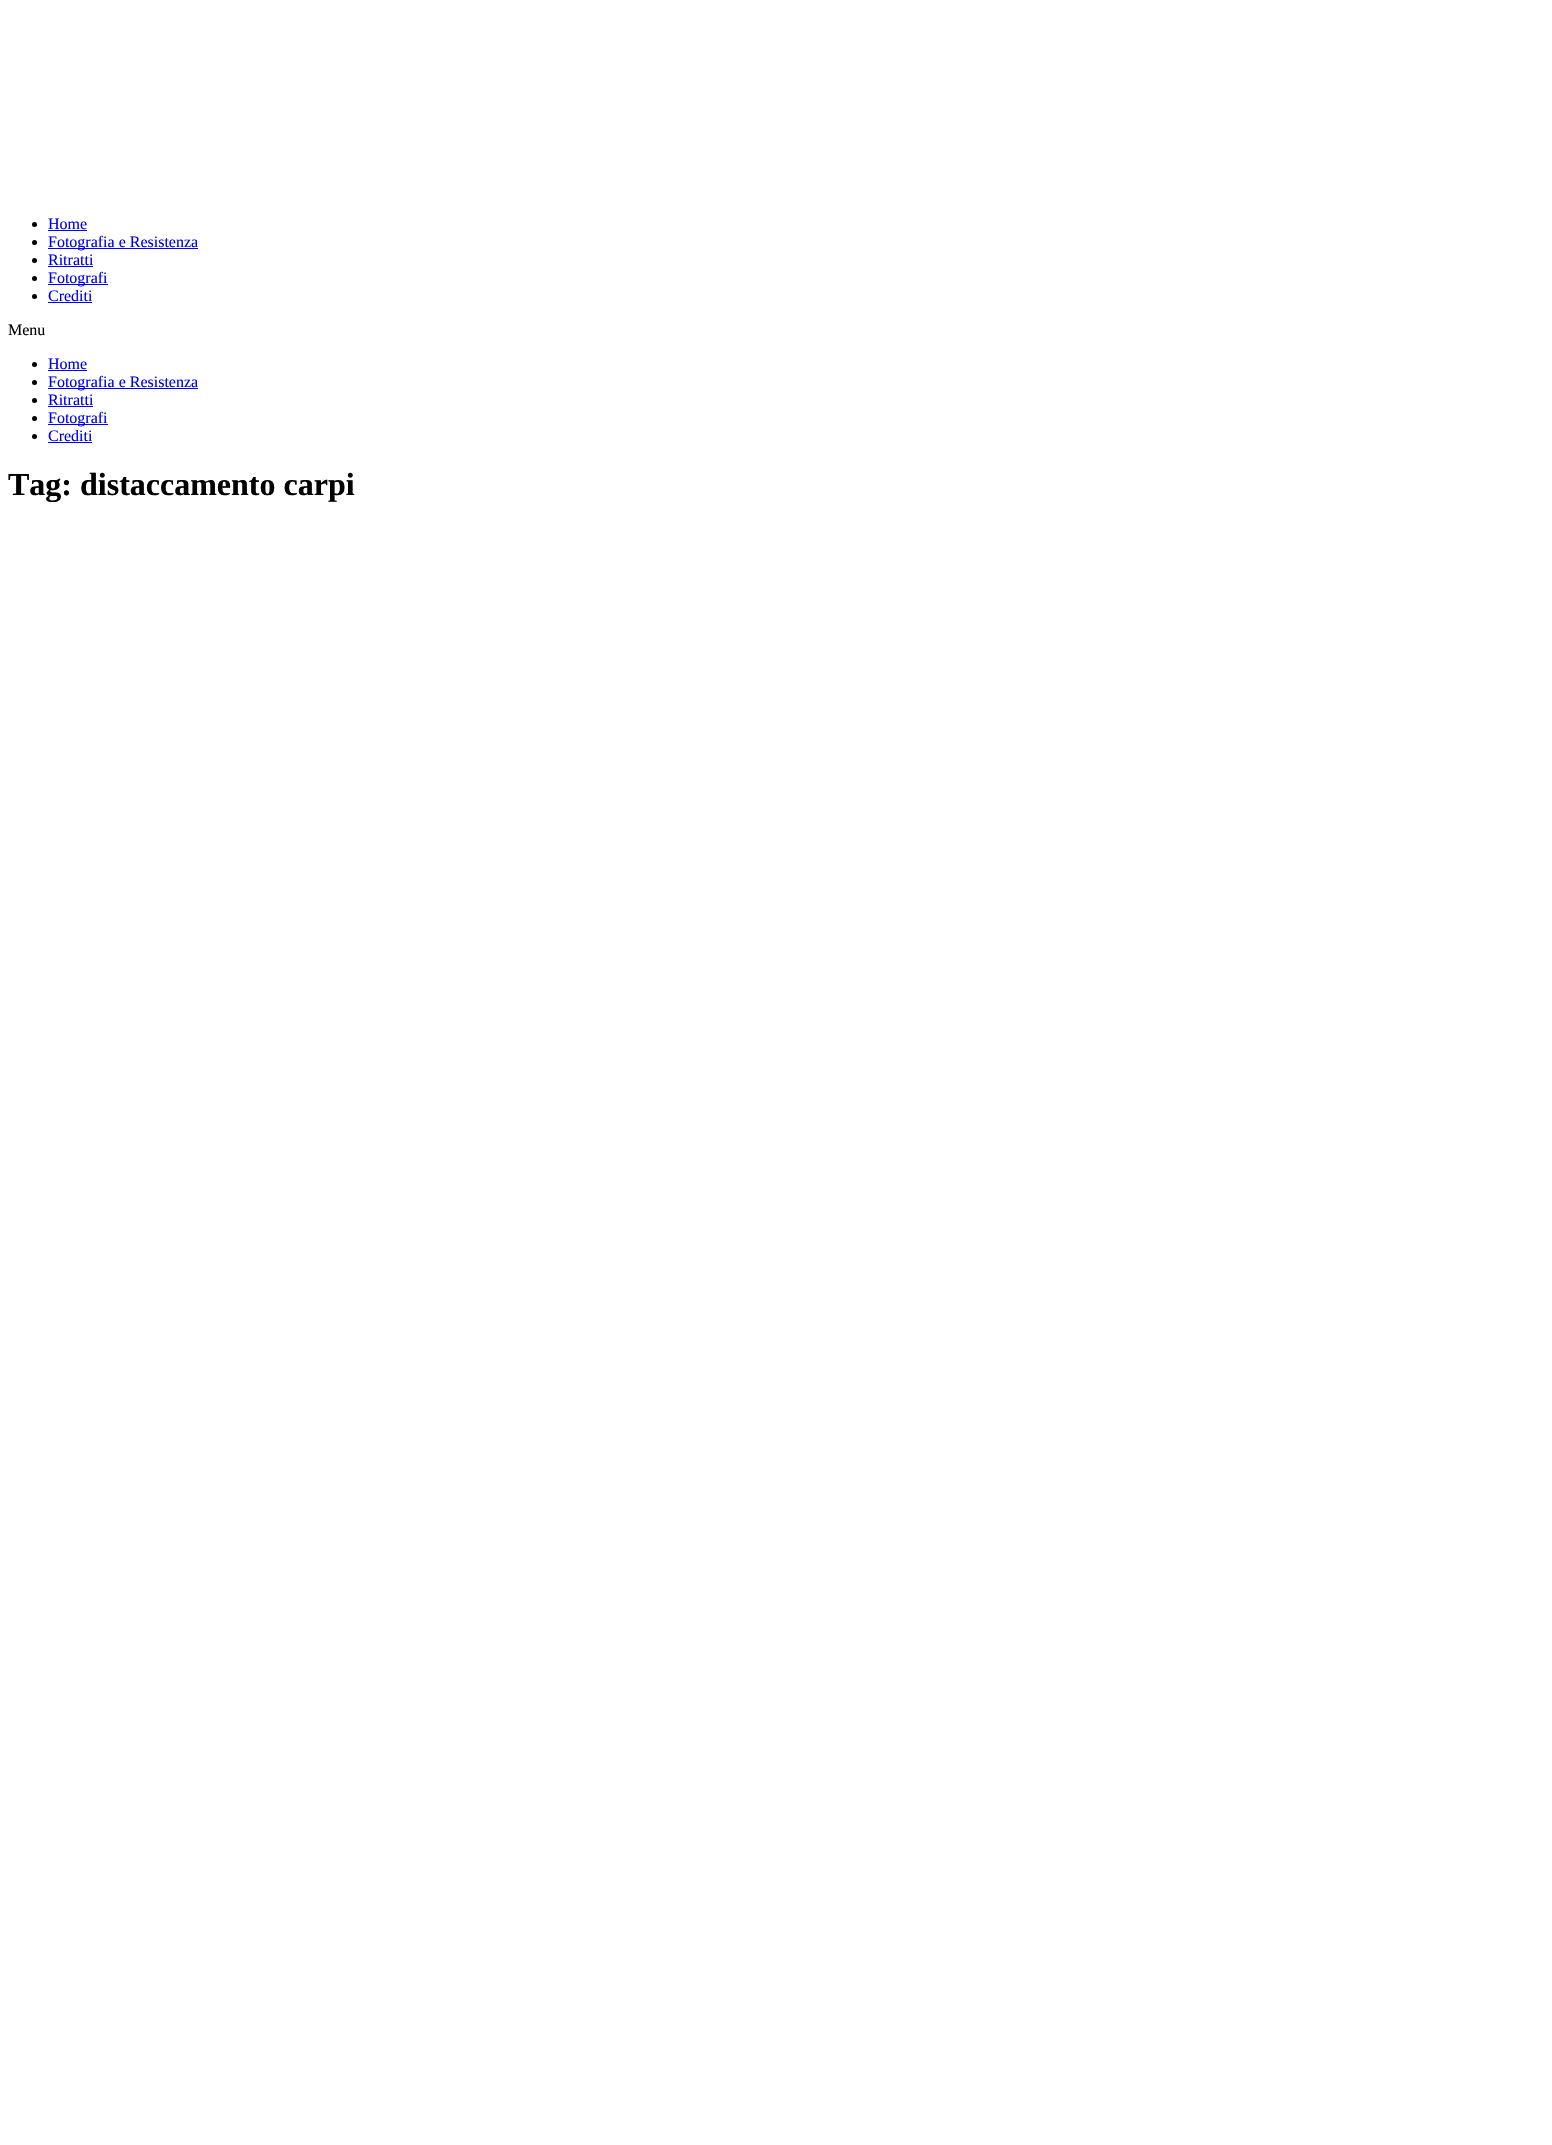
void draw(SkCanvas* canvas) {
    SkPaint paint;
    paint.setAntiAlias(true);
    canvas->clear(0xFFFFFFFF);
    paint.setColor(0xFF000000);
    canvas->drawCircle(34.5f, 224.5f, 2.5f, paint);
    SkFont font1(fontMgr->matchFamilyStyle("Liberation Serif", SkFontStyle::Normal()), 16);
    font1.setSubpixel(true);
    paint.setColor(0xFF0000EE);
    canvas->drawString("Home", 48, 229, font1, paint);
    canvas->drawRect(SkRect::MakeXYWH(48, 230, 39, 1), paint);
    paint.setColor(0xFF000000);
    canvas->drawCircle(34.5f, 242.5f, 2.5f, paint);
    paint.setColor(0xFF0000EE);
    canvas->drawRect(SkRect::MakeXYWH(48, 248, 150, 1), paint);
    canvas->drawString("Fotografia e Resistenza", 48, 247, font1, paint);
    paint.setColor(0xFF000000);
    canvas->drawCircle(34.5f, 260.5f, 2.5f, paint);
    paint.setColor(0xFF0000EE);
    canvas->drawString("Ritratti", 48, 265, font1, paint);
    canvas->drawRect(SkRect::MakeXYWH(48, 266, 45, 1), paint);
    paint.setColor(0xFF000000);
    canvas->drawCircle(34.5f, 278.5f, 2.5f, paint);
    paint.setColor(0xFF0000EE);
    canvas->drawRect(SkRect::MakeXYWH(48, 284, 60, 1), paint);
    canvas->drawString("Fotografi", 48, 283, font1, paint);
    paint.setColor(0xFF000000);
    canvas->drawCircle(34.5f, 296.5f, 2.5f, paint);
    paint.setColor(0xFF0000EE);
    canvas->drawString("Crediti", 48, 301, font1, paint);
    canvas->drawRect(SkRect::MakeXYWH(48, 302, 44, 1), paint);
    paint.setColor(0xFF000000);
    canvas->drawString("Menu", 8, 335, font1, paint);
    canvas->drawCircle(34.5f, 364.5f, 2.5f, paint);
    paint.setColor(0xFF0000EE);
    canvas->drawString("Home", 48, 369, font1, paint);
    canvas->drawRect(SkRect::MakeXYWH(48, 370, 39, 1), paint);
    paint.setColor(0xFF000000);
    canvas->drawCircle(34.5f, 382.5f, 2.5f, paint);
    paint.setColor(0xFF0000EE);
    canvas->drawRect(SkRect::MakeXYWH(48, 388, 150, 1), paint);
    canvas->drawString("Fotografia e Resistenza", 48, 387, font1, paint);
    paint.setColor(0xFF000000);
    canvas->drawCircle(34.5f, 400.5f, 2.5f, paint);
    paint.setColor(0xFF0000EE);
    canvas->drawString("Ritratti", 48, 405, font1, paint);
    canvas->drawRect(SkRect::MakeXYWH(48, 406, 45, 1), paint);
    paint.setColor(0xFF000000);
    canvas->drawCircle(34.5f, 418.5f, 2.5f, paint);
    paint.setColor(0xFF0000EE);
    canvas->drawRect(SkRect::MakeXYWH(48, 424, 60, 1), paint);
    canvas->drawString("Fotografi", 48, 423, font1, paint);
    paint.setColor(0xFF000000);
    canvas->drawCircle(34.5f, 436.5f, 2.5f, paint);
    paint.setColor(0xFF0000EE);
    canvas->drawString("Crediti", 48, 441, font1, paint);
    canvas->drawRect(SkRect::MakeXYWH(48, 442, 44, 1), paint);
    SkFont font2(fontMgr->matchFamilyStyle("Liberation Serif", SkFontStyle::Bold()), 32);
    font2.setSubpixel(true);
    paint.setColor(0xFF000000);
    canvas->drawString("Tag: distaccamento carpi", 8, 495, font2, paint);
}
